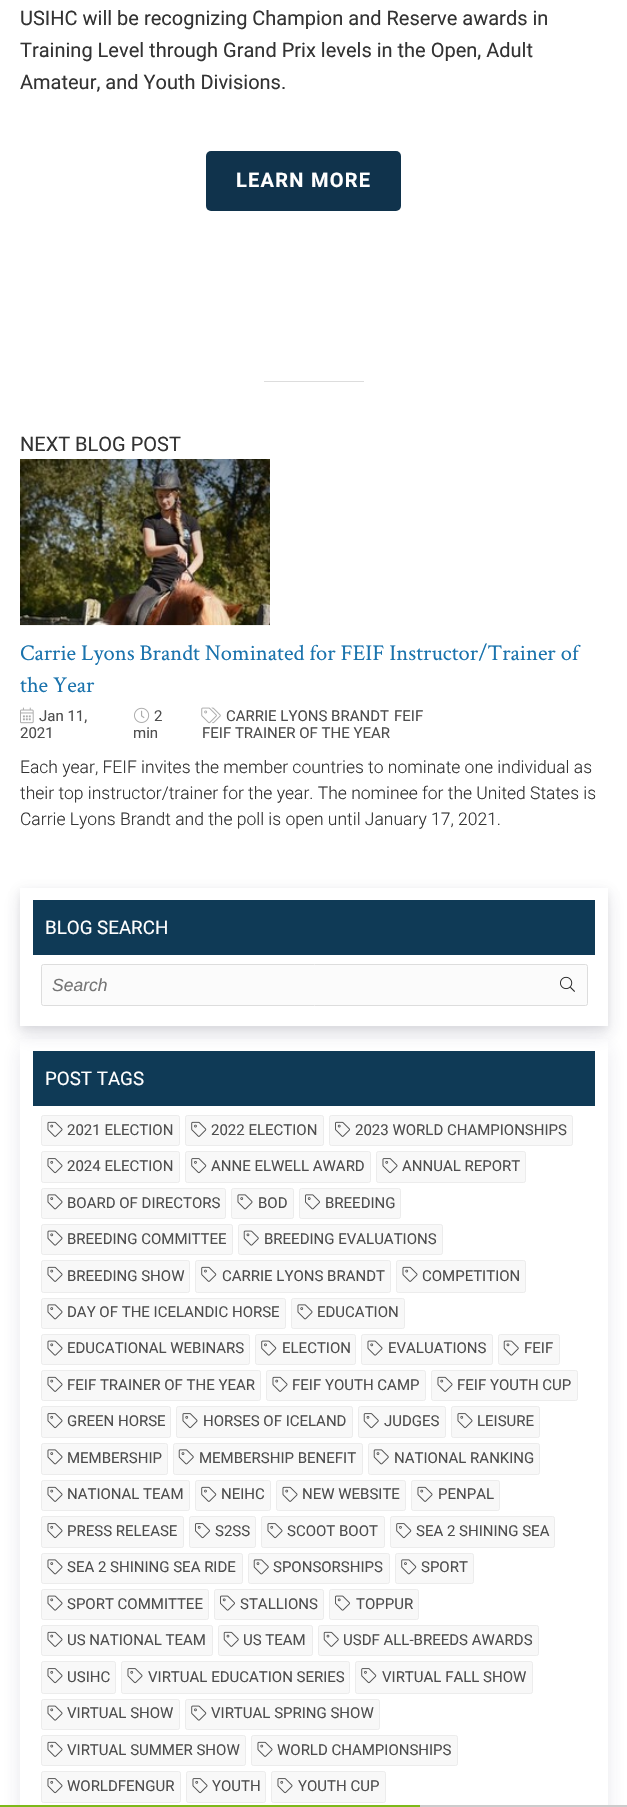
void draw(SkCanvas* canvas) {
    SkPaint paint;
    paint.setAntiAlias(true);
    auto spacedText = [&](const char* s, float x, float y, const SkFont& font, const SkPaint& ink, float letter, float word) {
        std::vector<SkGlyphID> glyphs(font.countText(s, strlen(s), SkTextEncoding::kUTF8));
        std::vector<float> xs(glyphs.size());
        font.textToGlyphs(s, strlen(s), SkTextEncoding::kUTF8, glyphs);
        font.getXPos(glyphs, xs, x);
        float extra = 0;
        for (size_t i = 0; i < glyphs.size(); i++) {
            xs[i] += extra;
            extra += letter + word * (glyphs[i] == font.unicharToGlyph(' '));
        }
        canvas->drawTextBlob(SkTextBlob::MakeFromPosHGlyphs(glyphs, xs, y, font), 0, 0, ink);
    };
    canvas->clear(0xFFFFFFFF);
    SkFont font1(fontMgr->matchFamilyStyle("Roboto", SkFontStyle::Normal()), 20);
    font1.setSubpixel(true);
    paint.setColor(0xFF333333);
    canvas->drawString("USIHC will be recognizing Champion and Reserve awards in", 20, 25, font1, paint);
    canvas->drawString("Training Level through Grand Prix levels in the Open, Adult", 20, 57, font1, paint);
    canvas->drawString("Amateur, and Youth Divisions.", 20, 89, font1, paint);
    paint.setColor(0xFF10334C);
    canvas->drawRoundRect(SkRect::MakeXYWH(206, 151, 195, 60), 5, 5, paint);
    SkFont font2(fontMgr->matchFamilyStyle("Roboto", SkFontStyle::Bold()), 20);
    font2.setSubpixel(true);
    paint.setColor(0xFFFFFFFF);
    spacedText("LEARN MORE", 236, 187, font2, paint, 1.25f, 0);
    paint.setColor(0xFFDDDDDD);
    canvas->drawRect(SkRect::MakeXYWH(264, 381, 100, 1), paint);
    paint.setColor(0xFF333333);
    canvas->drawString("NEXT BLOG POST", 20, 451, font1, paint);
    canvas->drawImageRect(SkImages::DeferredFromEncodedData(SkData::MakeFromFileName("img1.png")), SkRect::MakeXYWH(20, 459, 250, 167), SkSamplingOptions());
    SkFont font3(fontMgr->matchFamilyStyle("Crimson Text", SkFontStyle::Normal()), 22.5f);
    font3.setSubpixel(true);
    paint.setColor(0xFF1A73AD);
    canvas->drawString("Carrie Lyons Brandt Nominated for FEIF Instructor/Trainer of", 20, 660, font3, paint);
    canvas->drawString("the Year", 20, 692, font3, paint);
    canvas->drawImageRect(SkImages::DeferredFromEncodedData(SkData::MakeFromFileName("img2.png")), SkRect::MakeXYWH(20, 707, 14, 17), SkSamplingOptions());
    SkFont font4(fontMgr->matchFamilyStyle("Roboto", SkFontStyle::Normal()), 15);
    font4.setSubpixel(true);
    paint.setColor(0xFF4E4E4E);
    canvas->drawString("Jan 11,", 39, 721, font4, paint);
    canvas->drawString("2021", 20, 738, font4, paint);
    canvas->drawImageRect(SkImages::DeferredFromEncodedData(SkData::MakeFromFileName("img3.png")), SkRect::MakeXYWH(134, 707, 16, 16), SkSamplingOptions());
    canvas->drawString("2", 154, 721, font4, paint);
    canvas->drawString("min", 133, 738, font4, paint);
    canvas->drawImageRect(SkImages::DeferredFromEncodedData(SkData::MakeFromFileName("img4.png")), SkRect::MakeXYWH(201, 707, 20, 17), SkSamplingOptions());
    canvas->drawString("CARRIE LYONS BRANDT", 226, 721, font4, paint);
    canvas->drawString("FEIF", 394, 721, font4, paint);
    canvas->drawString("FEIF TRAINER OF THE YEAR", 202, 738, font4, paint);
    SkFont font5(fontMgr->matchFamilyStyle("Roboto", SkFontStyle(300, SkFontStyle::kNormal_Width, SkFontStyle::kUpright_Slant)), 17.5f);
    font5.setSubpixel(true);
    paint.setColor(0xFF333333);
    canvas->drawString("Each year, FEIF invites the member countries to nominate one individual as", 20, 773, font5, paint);
    canvas->drawString("their top instructor/trainer for the year. The nominee for the United States is", 20, 799, font5, paint);
    canvas->drawString("Carrie Lyons Brandt and the poll is open until January 17, 2021.", 20, 825, font5, paint);
    canvas->save();
    canvas->clipPath(SkPathBuilder(SkPathFillType::kEvenOdd).moveTo(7, 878).lineTo(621, 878).lineTo(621, 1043).lineTo(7, 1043).close().moveTo(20, 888).lineTo(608, 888).lineTo(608, 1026).lineTo(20, 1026).close().detach(), true);
    paint.setColor(0x14000000);
    paint.setMaskFilter(SkMaskFilter::MakeBlur(kNormal_SkBlurStyle, 4));
    canvas->drawRect(SkRect::MakeXYWH(20, 891, 588, 139), paint);
    paint.setMaskFilter(nullptr);
    canvas->restore();
    canvas->save();
    canvas->clipPath(SkPathBuilder(SkPathFillType::kEvenOdd).moveTo(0, 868).lineTo(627, 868).lineTo(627, 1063).lineTo(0, 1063).close().moveTo(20, 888).lineTo(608, 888).lineTo(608, 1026).lineTo(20, 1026).close().detach(), true);
    paint.setColor(0x1C32325D);
    paint.setMaskFilter(SkMaskFilter::MakeBlur(kNormal_SkBlurStyle, 9));
    canvas->drawRect(SkRect::MakeXYWH(20, 896, 588, 139), paint);
    paint.setMaskFilter(nullptr);
    canvas->restore();
    paint.setColor(0xFF0F3A56);
    canvas->drawRect(SkRect::MakeXYWH(33, 900, 562, 55), paint);
    SkFont font6(fontMgr->matchFamilyStyle("Roboto", SkFontStyle::Normal()), 18.75f);
    font6.setSubpixel(true);
    paint.setColor(0xFFFFFFFF);
    canvas->drawString("BLOG SEARCH", 45, 934, font6, paint);
    paint.setColor(0xFFFBFBFB);
    canvas->drawRoundRect(SkRect::MakeXYWH(41.5f, 964.5f, 546, 41), 2, 2, paint);
    paint.setStyle(SkPaint::kStroke_Style);
    paint.setStrokeWidth(1);
    paint.setColor(0xFFDDDDDD);
    canvas->drawRoundRect(SkRect::MakeXYWH(41.5f, 964.5f, 546, 41), 2, 2, paint);
    SkFont font7(fontMgr->matchFamilyStyle("Liberation Sans", SkFontStyle::Italic()), 17.5f);
    font7.setSubpixel(true);
    paint.setStyle(SkPaint::kFill_Style);
    paint.setColor(0xFF757575);
    canvas->drawString("Search", 52, 991, font7, paint);
    canvas->drawImageRect(SkImages::DeferredFromEncodedData(SkData::MakeFromFileName("img5.png")), SkRect::MakeXYWH(560, 976, 15, 16), SkSamplingOptions());
    canvas->save();
    canvas->clipPath(SkPathBuilder(SkPathFillType::kEvenOdd).moveTo(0, 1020).lineTo(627, 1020).lineTo(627, 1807).lineTo(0, 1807).close().moveTo(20, 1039).lineTo(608, 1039).lineTo(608, 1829).lineTo(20, 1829).close().detach(), true);
    paint.setColor(0x1C32325D);
    paint.setMaskFilter(SkMaskFilter::MakeBlur(kNormal_SkBlurStyle, 9));
    canvas->drawRect(SkRect::MakeXYWH(20, 1048, 588, 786), paint);
    paint.setMaskFilter(nullptr);
    canvas->restore();
    paint.setColor(0xFF0F3A56);
    canvas->drawRect(SkRect::MakeXYWH(33, 1051, 562, 55), paint);
    paint.setColor(0xFFFFFFFF);
    canvas->drawString("POST TAGS", 45, 1085, font6, paint);
    paint.setColor(0xFFF8F8F8);
    canvas->drawRoundRect(SkRect::MakeXYWH(41.5f, 1115.5f, 138, 30), 2, 2, paint);
    paint.setStyle(SkPaint::kStroke_Style);
    paint.setColor(0xFFECECEC);
    canvas->drawRoundRect(SkRect::MakeXYWH(41.5f, 1115.5f, 138, 30), 2, 2, paint);
    canvas->drawImageRect(SkImages::DeferredFromEncodedData(SkData::MakeFromFileName("img6.png")), SkRect::MakeXYWH(47, 1121, 16, 16), SkSamplingOptions());
    paint.setStyle(SkPaint::kFill_Style);
    paint.setColor(0xFF4E4E4E);
    canvas->drawString("2021 ELECTION", 67, 1135, font4, paint);
    paint.setColor(0xFFF8F8F8);
    canvas->drawRoundRect(SkRect::MakeXYWH(185.5f, 1115.5f, 138, 30), 2, 2, paint);
    paint.setStyle(SkPaint::kStroke_Style);
    paint.setColor(0xFFECECEC);
    canvas->drawRoundRect(SkRect::MakeXYWH(185.5f, 1115.5f, 138, 30), 2, 2, paint);
    canvas->drawImageRect(SkImages::DeferredFromEncodedData(SkData::MakeFromFileName("img7.png")), SkRect::MakeXYWH(191, 1121, 16, 16), SkSamplingOptions());
    paint.setStyle(SkPaint::kFill_Style);
    paint.setColor(0xFF4E4E4E);
    canvas->drawString("2022 ELECTION", 211, 1135, font4, paint);
    paint.setColor(0xFFF8F8F8);
    canvas->drawRoundRect(SkRect::MakeXYWH(329.5f, 1115.5f, 243, 30), 2, 2, paint);
    paint.setStyle(SkPaint::kStroke_Style);
    paint.setColor(0xFFECECEC);
    canvas->drawRoundRect(SkRect::MakeXYWH(329.5f, 1115.5f, 243, 30), 2, 2, paint);
    canvas->drawImageRect(SkImages::DeferredFromEncodedData(SkData::MakeFromFileName("img8.png")), SkRect::MakeXYWH(335, 1121, 15, 16), SkSamplingOptions());
    paint.setStyle(SkPaint::kFill_Style);
    paint.setColor(0xFF4E4E4E);
    canvas->drawString("2023 WORLD CHAMPIONSHIPS", 355, 1135, font4, paint);
    paint.setColor(0xFFF8F8F8);
    canvas->drawRoundRect(SkRect::MakeXYWH(41.5f, 1151.5f, 138, 31), 2, 2, paint);
    paint.setStyle(SkPaint::kStroke_Style);
    paint.setColor(0xFFECECEC);
    canvas->drawRoundRect(SkRect::MakeXYWH(41.5f, 1151.5f, 138, 31), 2, 2, paint);
    canvas->drawImageRect(SkImages::DeferredFromEncodedData(SkData::MakeFromFileName("img9.png")), SkRect::MakeXYWH(47, 1158, 16, 16), SkSamplingOptions());
    paint.setStyle(SkPaint::kFill_Style);
    paint.setColor(0xFF4E4E4E);
    canvas->drawString("2024 ELECTION", 67, 1171, font4, paint);
    paint.setColor(0xFFF8F8F8);
    canvas->drawRoundRect(SkRect::MakeXYWH(185.5f, 1151.5f, 185, 31), 2, 2, paint);
    paint.setStyle(SkPaint::kStroke_Style);
    paint.setColor(0xFFECECEC);
    canvas->drawRoundRect(SkRect::MakeXYWH(185.5f, 1151.5f, 185, 31), 2, 2, paint);
    canvas->drawImageRect(SkImages::DeferredFromEncodedData(SkData::MakeFromFileName("img10.png")), SkRect::MakeXYWH(191, 1158, 16, 16), SkSamplingOptions());
    paint.setStyle(SkPaint::kFill_Style);
    paint.setColor(0xFF4E4E4E);
    canvas->drawString("ANNE ELWELL AWARD", 211, 1171, font4, paint);
    paint.setColor(0xFFF8F8F8);
    canvas->drawRoundRect(SkRect::MakeXYWH(376.5f, 1151.5f, 149, 31), 2, 2, paint);
    paint.setStyle(SkPaint::kStroke_Style);
    paint.setColor(0xFFECECEC);
    canvas->drawRoundRect(SkRect::MakeXYWH(376.5f, 1151.5f, 149, 31), 2, 2, paint);
    canvas->drawImageRect(SkImages::DeferredFromEncodedData(SkData::MakeFromFileName("img9.png")), SkRect::MakeXYWH(382, 1158, 16, 16), SkSamplingOptions());
    paint.setStyle(SkPaint::kFill_Style);
    paint.setColor(0xFF4E4E4E);
    canvas->drawString("ANNUAL REPORT", 402, 1171, font4, paint);
    paint.setColor(0xFFF8F8F8);
    canvas->drawRoundRect(SkRect::MakeXYWH(41.5f, 1188.5f, 184, 30), 2, 2, paint);
    paint.setStyle(SkPaint::kStroke_Style);
    paint.setColor(0xFFECECEC);
    canvas->drawRoundRect(SkRect::MakeXYWH(41.5f, 1188.5f, 184, 30), 2, 2, paint);
    canvas->drawImageRect(SkImages::DeferredFromEncodedData(SkData::MakeFromFileName("img11.png")), SkRect::MakeXYWH(47, 1194, 16, 16), SkSamplingOptions());
    paint.setStyle(SkPaint::kFill_Style);
    paint.setColor(0xFF4E4E4E);
    canvas->drawString("BOARD OF DIRECTORS", 67, 1208, font4, paint);
    paint.setColor(0xFFF8F8F8);
    canvas->drawRoundRect(SkRect::MakeXYWH(231.5f, 1188.5f, 62, 30), 2, 2, paint);
    paint.setStyle(SkPaint::kStroke_Style);
    paint.setColor(0xFFECECEC);
    canvas->drawRoundRect(SkRect::MakeXYWH(231.5f, 1188.5f, 62, 30), 2, 2, paint);
    canvas->drawImageRect(SkImages::DeferredFromEncodedData(SkData::MakeFromFileName("img11.png")), SkRect::MakeXYWH(237, 1194, 16, 16), SkSamplingOptions());
    paint.setStyle(SkPaint::kFill_Style);
    paint.setColor(0xFF4E4E4E);
    canvas->drawString("BOD", 258, 1208, font4, paint);
    paint.setColor(0xFFF8F8F8);
    canvas->drawRoundRect(SkRect::MakeXYWH(299.5f, 1188.5f, 101, 30), 2, 2, paint);
    paint.setStyle(SkPaint::kStroke_Style);
    paint.setColor(0xFFECECEC);
    canvas->drawRoundRect(SkRect::MakeXYWH(299.5f, 1188.5f, 101, 30), 2, 2, paint);
    canvas->drawImageRect(SkImages::DeferredFromEncodedData(SkData::MakeFromFileName("img12.png")), SkRect::MakeXYWH(305, 1194, 15, 16), SkSamplingOptions());
    paint.setStyle(SkPaint::kFill_Style);
    paint.setColor(0xFF4E4E4E);
    canvas->drawString("BREEDING", 325, 1208, font4, paint);
    paint.setColor(0xFFF8F8F8);
    canvas->drawRoundRect(SkRect::MakeXYWH(41.5f, 1224.5f, 191, 30), 2, 2, paint);
    paint.setStyle(SkPaint::kStroke_Style);
    paint.setColor(0xFFECECEC);
    canvas->drawRoundRect(SkRect::MakeXYWH(41.5f, 1224.5f, 191, 30), 2, 2, paint);
    canvas->drawImageRect(SkImages::DeferredFromEncodedData(SkData::MakeFromFileName("img13.png")), SkRect::MakeXYWH(47, 1230, 16, 16), SkSamplingOptions());
    paint.setStyle(SkPaint::kFill_Style);
    paint.setColor(0xFF4E4E4E);
    canvas->drawString("BREEDING COMMITTEE", 67, 1244, font4, paint);
    paint.setColor(0xFFF8F8F8);
    canvas->drawRoundRect(SkRect::MakeXYWH(238.5f, 1224.5f, 204, 30), 2, 2, paint);
    paint.setStyle(SkPaint::kStroke_Style);
    paint.setColor(0xFFECECEC);
    canvas->drawRoundRect(SkRect::MakeXYWH(238.5f, 1224.5f, 204, 30), 2, 2, paint);
    canvas->drawImageRect(SkImages::DeferredFromEncodedData(SkData::MakeFromFileName("img14.png")), SkRect::MakeXYWH(243, 1230, 16, 16), SkSamplingOptions());
    paint.setStyle(SkPaint::kFill_Style);
    paint.setColor(0xFF4E4E4E);
    canvas->drawString("BREEDING EVALUATIONS", 264, 1244, font4, paint);
    paint.setColor(0xFFF8F8F8);
    canvas->drawRoundRect(SkRect::MakeXYWH(41.5f, 1260.5f, 148, 32), 2, 2, paint);
    paint.setStyle(SkPaint::kStroke_Style);
    paint.setColor(0xFFECECEC);
    canvas->drawRoundRect(SkRect::MakeXYWH(41.5f, 1260.5f, 148, 32), 2, 2, paint);
    canvas->drawImageRect(SkImages::DeferredFromEncodedData(SkData::MakeFromFileName("img6.png")), SkRect::MakeXYWH(47, 1266, 16, 16), SkSamplingOptions());
    paint.setStyle(SkPaint::kFill_Style);
    paint.setColor(0xFF4E4E4E);
    canvas->drawString("BREEDING SHOW", 67, 1281, font4, paint);
    paint.setColor(0xFFF8F8F8);
    canvas->drawRoundRect(SkRect::MakeXYWH(195.5f, 1260.5f, 195, 32), 2, 2, paint);
    paint.setStyle(SkPaint::kStroke_Style);
    paint.setColor(0xFFECECEC);
    canvas->drawRoundRect(SkRect::MakeXYWH(195.5f, 1260.5f, 195, 32), 2, 2, paint);
    canvas->drawImageRect(SkImages::DeferredFromEncodedData(SkData::MakeFromFileName("img7.png")), SkRect::MakeXYWH(201, 1266, 16, 16), SkSamplingOptions());
    paint.setStyle(SkPaint::kFill_Style);
    paint.setColor(0xFF4E4E4E);
    canvas->drawString("CARRIE LYONS BRANDT", 222, 1281, font4, paint);
    paint.setColor(0xFFF8F8F8);
    canvas->drawRoundRect(SkRect::MakeXYWH(396.5f, 1260.5f, 129, 32), 2, 2, paint);
    paint.setStyle(SkPaint::kStroke_Style);
    paint.setColor(0xFFECECEC);
    canvas->drawRoundRect(SkRect::MakeXYWH(396.5f, 1260.5f, 129, 32), 2, 2, paint);
    canvas->drawImageRect(SkImages::DeferredFromEncodedData(SkData::MakeFromFileName("img6.png")), SkRect::MakeXYWH(402, 1266, 16, 16), SkSamplingOptions());
    paint.setStyle(SkPaint::kFill_Style);
    paint.setColor(0xFF4E4E4E);
    canvas->drawString("COMPETITION", 422, 1281, font4, paint);
    paint.setColor(0xFFF8F8F8);
    canvas->drawRoundRect(SkRect::MakeXYWH(41.5f, 1298.5f, 244, 30), 2, 2, paint);
    paint.setStyle(SkPaint::kStroke_Style);
    paint.setColor(0xFFECECEC);
    canvas->drawRoundRect(SkRect::MakeXYWH(41.5f, 1298.5f, 244, 30), 2, 2, paint);
    canvas->drawImageRect(SkImages::DeferredFromEncodedData(SkData::MakeFromFileName("img11.png")), SkRect::MakeXYWH(47, 1304, 16, 16), SkSamplingOptions());
    paint.setStyle(SkPaint::kFill_Style);
    paint.setColor(0xFF4E4E4E);
    canvas->drawString("DAY OF THE ICELANDIC HORSE", 67, 1317, font4, paint);
    paint.setColor(0xFFF8F8F8);
    canvas->drawRoundRect(SkRect::MakeXYWH(291.5f, 1298.5f, 113, 30), 2, 2, paint);
    paint.setStyle(SkPaint::kStroke_Style);
    paint.setColor(0xFFECECEC);
    canvas->drawRoundRect(SkRect::MakeXYWH(291.5f, 1298.5f, 113, 30), 2, 2, paint);
    canvas->drawImageRect(SkImages::DeferredFromEncodedData(SkData::MakeFromFileName("img11.png")), SkRect::MakeXYWH(297, 1304, 16, 16), SkSamplingOptions());
    paint.setStyle(SkPaint::kFill_Style);
    paint.setColor(0xFF4E4E4E);
    canvas->drawString("EDUCATION", 317, 1317, font4, paint);
    paint.setColor(0xFFF8F8F8);
    canvas->drawRoundRect(SkRect::MakeXYWH(41.5f, 1334.5f, 208, 30), 2, 2, paint);
    paint.setStyle(SkPaint::kStroke_Style);
    paint.setColor(0xFFECECEC);
    canvas->drawRoundRect(SkRect::MakeXYWH(41.5f, 1334.5f, 208, 30), 2, 2, paint);
    canvas->drawImageRect(SkImages::DeferredFromEncodedData(SkData::MakeFromFileName("img13.png")), SkRect::MakeXYWH(47, 1340, 16, 16), SkSamplingOptions());
    paint.setStyle(SkPaint::kFill_Style);
    paint.setColor(0xFF4E4E4E);
    canvas->drawString("EDUCATIONAL WEBINARS", 67, 1353, font4, paint);
    paint.setColor(0xFFF8F8F8);
    canvas->drawRoundRect(SkRect::MakeXYWH(255.5f, 1334.5f, 100, 30), 2, 2, paint);
    paint.setStyle(SkPaint::kStroke_Style);
    paint.setColor(0xFFECECEC);
    canvas->drawRoundRect(SkRect::MakeXYWH(255.5f, 1334.5f, 100, 30), 2, 2, paint);
    canvas->drawImageRect(SkImages::DeferredFromEncodedData(SkData::MakeFromFileName("img15.png")), SkRect::MakeXYWH(261, 1340, 16, 16), SkSamplingOptions());
    paint.setStyle(SkPaint::kFill_Style);
    paint.setColor(0xFF4E4E4E);
    canvas->drawString("ELECTION", 282, 1353, font4, paint);
    paint.setColor(0xFFF8F8F8);
    canvas->drawRoundRect(SkRect::MakeXYWH(361.5f, 1334.5f, 131, 30), 2, 2, paint);
    paint.setStyle(SkPaint::kStroke_Style);
    paint.setColor(0xFFECECEC);
    canvas->drawRoundRect(SkRect::MakeXYWH(361.5f, 1334.5f, 131, 30), 2, 2, paint);
    canvas->drawImageRect(SkImages::DeferredFromEncodedData(SkData::MakeFromFileName("img13.png")), SkRect::MakeXYWH(367, 1340, 16, 16), SkSamplingOptions());
    paint.setStyle(SkPaint::kFill_Style);
    paint.setColor(0xFF4E4E4E);
    canvas->drawString("EVALUATIONS", 388, 1353, font4, paint);
    paint.setColor(0xFFF8F8F8);
    canvas->drawRoundRect(SkRect::MakeXYWH(498.5f, 1334.5f, 61, 30), 2, 2, paint);
    paint.setStyle(SkPaint::kStroke_Style);
    paint.setColor(0xFFECECEC);
    canvas->drawRoundRect(SkRect::MakeXYWH(498.5f, 1334.5f, 61, 30), 2, 2, paint);
    canvas->drawImageRect(SkImages::DeferredFromEncodedData(SkData::MakeFromFileName("img14.png")), SkRect::MakeXYWH(503, 1340, 16, 16), SkSamplingOptions());
    paint.setStyle(SkPaint::kFill_Style);
    paint.setColor(0xFF4E4E4E);
    canvas->drawString("FEIF", 524, 1353, font4, paint);
    paint.setColor(0xFFF8F8F8);
    canvas->drawRoundRect(SkRect::MakeXYWH(41.5f, 1370.5f, 219, 30), 2, 2, paint);
    paint.setStyle(SkPaint::kStroke_Style);
    paint.setColor(0xFFECECEC);
    canvas->drawRoundRect(SkRect::MakeXYWH(41.5f, 1370.5f, 219, 30), 2, 2, paint);
    canvas->drawImageRect(SkImages::DeferredFromEncodedData(SkData::MakeFromFileName("img6.png")), SkRect::MakeXYWH(47, 1376, 16, 16), SkSamplingOptions());
    paint.setStyle(SkPaint::kFill_Style);
    paint.setColor(0xFF4E4E4E);
    canvas->drawString("FEIF TRAINER OF THE YEAR", 67, 1390, font4, paint);
    paint.setColor(0xFFF8F8F8);
    canvas->drawRoundRect(SkRect::MakeXYWH(266.5f, 1370.5f, 159, 30), 2, 2, paint);
    paint.setStyle(SkPaint::kStroke_Style);
    paint.setColor(0xFFECECEC);
    canvas->drawRoundRect(SkRect::MakeXYWH(266.5f, 1370.5f, 159, 30), 2, 2, paint);
    canvas->drawImageRect(SkImages::DeferredFromEncodedData(SkData::MakeFromFileName("img6.png")), SkRect::MakeXYWH(272, 1376, 16, 16), SkSamplingOptions());
    paint.setStyle(SkPaint::kFill_Style);
    paint.setColor(0xFF4E4E4E);
    canvas->drawString("FEIF YOUTH CAMP", 292, 1390, font4, paint);
    paint.setColor(0xFFF8F8F8);
    canvas->drawRoundRect(SkRect::MakeXYWH(431.5f, 1370.5f, 146, 30), 2, 2, paint);
    paint.setStyle(SkPaint::kStroke_Style);
    paint.setColor(0xFFECECEC);
    canvas->drawRoundRect(SkRect::MakeXYWH(431.5f, 1370.5f, 146, 30), 2, 2, paint);
    canvas->drawImageRect(SkImages::DeferredFromEncodedData(SkData::MakeFromFileName("img6.png")), SkRect::MakeXYWH(437, 1376, 16, 16), SkSamplingOptions());
    paint.setStyle(SkPaint::kFill_Style);
    paint.setColor(0xFF4E4E4E);
    canvas->drawString("FEIF YOUTH CUP", 457, 1390, font4, paint);
    paint.setColor(0xFFF8F8F8);
    canvas->drawRoundRect(SkRect::MakeXYWH(41.5f, 1406.5f, 129, 31), 2, 2, paint);
    paint.setStyle(SkPaint::kStroke_Style);
    paint.setColor(0xFFECECEC);
    canvas->drawRoundRect(SkRect::MakeXYWH(41.5f, 1406.5f, 129, 31), 2, 2, paint);
    canvas->drawImageRect(SkImages::DeferredFromEncodedData(SkData::MakeFromFileName("img9.png")), SkRect::MakeXYWH(47, 1413, 16, 16), SkSamplingOptions());
    paint.setStyle(SkPaint::kFill_Style);
    paint.setColor(0xFF4E4E4E);
    canvas->drawString("GREEN HORSE", 67, 1426, font4, paint);
    paint.setColor(0xFFF8F8F8);
    canvas->drawRoundRect(SkRect::MakeXYWH(176.5f, 1406.5f, 176, 31), 2, 2, paint);
    paint.setStyle(SkPaint::kStroke_Style);
    paint.setColor(0xFFECECEC);
    canvas->drawRoundRect(SkRect::MakeXYWH(176.5f, 1406.5f, 176, 31), 2, 2, paint);
    canvas->drawImageRect(SkImages::DeferredFromEncodedData(SkData::MakeFromFileName("img9.png")), SkRect::MakeXYWH(182, 1413, 16, 16), SkSamplingOptions());
    paint.setStyle(SkPaint::kFill_Style);
    paint.setColor(0xFF4E4E4E);
    canvas->drawString("HORSES OF ICELAND", 203, 1426, font4, paint);
    paint.setColor(0xFFF8F8F8);
    canvas->drawRoundRect(SkRect::MakeXYWH(358.5f, 1406.5f, 87, 31), 2, 2, paint);
    paint.setStyle(SkPaint::kStroke_Style);
    paint.setColor(0xFFECECEC);
    canvas->drawRoundRect(SkRect::MakeXYWH(358.5f, 1406.5f, 87, 31), 2, 2, paint);
    canvas->drawImageRect(SkImages::DeferredFromEncodedData(SkData::MakeFromFileName("img16.png")), SkRect::MakeXYWH(363, 1413, 16, 16), SkSamplingOptions());
    paint.setStyle(SkPaint::kFill_Style);
    paint.setColor(0xFF4E4E4E);
    canvas->drawString("JUDGES", 384, 1426, font4, paint);
    paint.setColor(0xFFF8F8F8);
    canvas->drawRoundRect(SkRect::MakeXYWH(451.5f, 1406.5f, 88, 31), 2, 2, paint);
    paint.setStyle(SkPaint::kStroke_Style);
    paint.setColor(0xFFECECEC);
    canvas->drawRoundRect(SkRect::MakeXYWH(451.5f, 1406.5f, 88, 31), 2, 2, paint);
    canvas->drawImageRect(SkImages::DeferredFromEncodedData(SkData::MakeFromFileName("img9.png")), SkRect::MakeXYWH(457, 1413, 16, 16), SkSamplingOptions());
    paint.setStyle(SkPaint::kFill_Style);
    paint.setColor(0xFF4E4E4E);
    canvas->drawString("LEISURE", 477, 1426, font4, paint);
    paint.setColor(0xFFF8F8F8);
    canvas->drawRoundRect(SkRect::MakeXYWH(41.5f, 1443.5f, 126, 31), 2, 2, paint);
    paint.setStyle(SkPaint::kStroke_Style);
    paint.setColor(0xFFECECEC);
    canvas->drawRoundRect(SkRect::MakeXYWH(41.5f, 1443.5f, 126, 31), 2, 2, paint);
    canvas->drawImageRect(SkImages::DeferredFromEncodedData(SkData::MakeFromFileName("img11.png")), SkRect::MakeXYWH(47, 1449, 16, 16), SkSamplingOptions());
    paint.setStyle(SkPaint::kFill_Style);
    paint.setColor(0xFF4E4E4E);
    canvas->drawString("MEMBERSHIP", 67, 1463, font4, paint);
    paint.setColor(0xFFF8F8F8);
    canvas->drawRoundRect(SkRect::MakeXYWH(173.5f, 1443.5f, 189, 31), 2, 2, paint);
    paint.setStyle(SkPaint::kStroke_Style);
    paint.setColor(0xFFECECEC);
    canvas->drawRoundRect(SkRect::MakeXYWH(173.5f, 1443.5f, 189, 31), 2, 2, paint);
    canvas->drawImageRect(SkImages::DeferredFromEncodedData(SkData::MakeFromFileName("img17.png")), SkRect::MakeXYWH(178, 1449, 16, 16), SkSamplingOptions());
    paint.setStyle(SkPaint::kFill_Style);
    paint.setColor(0xFF4E4E4E);
    canvas->drawString("MEMBERSHIP BENEFIT", 199, 1463, font4, paint);
    paint.setColor(0xFFF8F8F8);
    canvas->drawRoundRect(SkRect::MakeXYWH(368.5f, 1443.5f, 171, 31), 2, 2, paint);
    paint.setStyle(SkPaint::kStroke_Style);
    paint.setColor(0xFFECECEC);
    canvas->drawRoundRect(SkRect::MakeXYWH(368.5f, 1443.5f, 171, 31), 2, 2, paint);
    canvas->drawImageRect(SkImages::DeferredFromEncodedData(SkData::MakeFromFileName("img17.png")), SkRect::MakeXYWH(373, 1449, 16, 16), SkSamplingOptions());
    paint.setStyle(SkPaint::kFill_Style);
    paint.setColor(0xFF4E4E4E);
    canvas->drawString("NATIONAL RANKING", 394, 1463, font4, paint);
    paint.setColor(0xFFF8F8F8);
    canvas->drawRoundRect(SkRect::MakeXYWH(41.5f, 1480.5f, 148, 30), 2, 2, paint);
    paint.setStyle(SkPaint::kStroke_Style);
    paint.setColor(0xFFECECEC);
    canvas->drawRoundRect(SkRect::MakeXYWH(41.5f, 1480.5f, 148, 30), 2, 2, paint);
    canvas->drawImageRect(SkImages::DeferredFromEncodedData(SkData::MakeFromFileName("img6.png")), SkRect::MakeXYWH(47, 1486, 16, 16), SkSamplingOptions());
    paint.setStyle(SkPaint::kFill_Style);
    paint.setColor(0xFF4E4E4E);
    canvas->drawString("NATIONAL TEAM", 67, 1499, font4, paint);
    paint.setColor(0xFFF8F8F8);
    canvas->drawRoundRect(SkRect::MakeXYWH(195.5f, 1480.5f, 75, 30), 2, 2, paint);
    paint.setStyle(SkPaint::kStroke_Style);
    paint.setColor(0xFFECECEC);
    canvas->drawRoundRect(SkRect::MakeXYWH(195.5f, 1480.5f, 75, 30), 2, 2, paint);
    canvas->drawImageRect(SkImages::DeferredFromEncodedData(SkData::MakeFromFileName("img7.png")), SkRect::MakeXYWH(201, 1486, 16, 16), SkSamplingOptions());
    paint.setStyle(SkPaint::kFill_Style);
    paint.setColor(0xFF4E4E4E);
    canvas->drawString("NEIHC", 221, 1499, font4, paint);
    paint.setColor(0xFFF8F8F8);
    canvas->drawRoundRect(SkRect::MakeXYWH(276.5f, 1480.5f, 129, 30), 2, 2, paint);
    paint.setStyle(SkPaint::kStroke_Style);
    paint.setColor(0xFFECECEC);
    canvas->drawRoundRect(SkRect::MakeXYWH(276.5f, 1480.5f, 129, 30), 2, 2, paint);
    canvas->drawImageRect(SkImages::DeferredFromEncodedData(SkData::MakeFromFileName("img6.png")), SkRect::MakeXYWH(282, 1486, 16, 16), SkSamplingOptions());
    paint.setStyle(SkPaint::kFill_Style);
    paint.setColor(0xFF4E4E4E);
    canvas->drawString("NEW WEBSITE", 302, 1499, font4, paint);
    paint.setColor(0xFFF8F8F8);
    canvas->drawRoundRect(SkRect::MakeXYWH(411.5f, 1480.5f, 88, 30), 2, 2, paint);
    paint.setStyle(SkPaint::kStroke_Style);
    paint.setColor(0xFFECECEC);
    canvas->drawRoundRect(SkRect::MakeXYWH(411.5f, 1480.5f, 88, 30), 2, 2, paint);
    canvas->drawImageRect(SkImages::DeferredFromEncodedData(SkData::MakeFromFileName("img6.png")), SkRect::MakeXYWH(417, 1486, 16, 16), SkSamplingOptions());
    paint.setStyle(SkPaint::kFill_Style);
    paint.setColor(0xFF4E4E4E);
    canvas->drawString("PENPAL", 438, 1499, font4, paint);
    paint.setColor(0xFFF8F8F8);
    canvas->drawRoundRect(SkRect::MakeXYWH(41.5f, 1516.5f, 142, 31), 2, 2, paint);
    paint.setStyle(SkPaint::kStroke_Style);
    paint.setColor(0xFFECECEC);
    canvas->drawRoundRect(SkRect::MakeXYWH(41.5f, 1516.5f, 142, 31), 2, 2, paint);
    canvas->drawImageRect(SkImages::DeferredFromEncodedData(SkData::MakeFromFileName("img9.png")), SkRect::MakeXYWH(47, 1523, 16, 16), SkSamplingOptions());
    paint.setStyle(SkPaint::kFill_Style);
    paint.setColor(0xFF4E4E4E);
    canvas->drawString("PRESS RELEASE", 67, 1536, font4, paint);
    paint.setColor(0xFFF8F8F8);
    canvas->drawRoundRect(SkRect::MakeXYWH(189.5f, 1516.5f, 66, 31), 2, 2, paint);
    paint.setStyle(SkPaint::kStroke_Style);
    paint.setColor(0xFFECECEC);
    canvas->drawRoundRect(SkRect::MakeXYWH(189.5f, 1516.5f, 66, 31), 2, 2, paint);
    canvas->drawImageRect(SkImages::DeferredFromEncodedData(SkData::MakeFromFileName("img18.png")), SkRect::MakeXYWH(195, 1523, 15, 16), SkSamplingOptions());
    paint.setStyle(SkPaint::kFill_Style);
    paint.setColor(0xFF4E4E4E);
    canvas->drawString("S2SS", 215, 1536, font4, paint);
    paint.setColor(0xFFF8F8F8);
    canvas->drawRoundRect(SkRect::MakeXYWH(261.5f, 1516.5f, 123, 31), 2, 2, paint);
    paint.setStyle(SkPaint::kStroke_Style);
    paint.setColor(0xFFECECEC);
    canvas->drawRoundRect(SkRect::MakeXYWH(261.5f, 1516.5f, 123, 31), 2, 2, paint);
    canvas->drawImageRect(SkImages::DeferredFromEncodedData(SkData::MakeFromFileName("img9.png")), SkRect::MakeXYWH(267, 1523, 16, 16), SkSamplingOptions());
    paint.setStyle(SkPaint::kFill_Style);
    paint.setColor(0xFF4E4E4E);
    canvas->drawString("SCOOT BOOT", 287, 1536, font4, paint);
    paint.setColor(0xFFF8F8F8);
    canvas->drawRoundRect(SkRect::MakeXYWH(390.5f, 1516.5f, 164, 31), 2, 2, paint);
    paint.setStyle(SkPaint::kStroke_Style);
    paint.setColor(0xFFECECEC);
    canvas->drawRoundRect(SkRect::MakeXYWH(390.5f, 1516.5f, 164, 31), 2, 2, paint);
    canvas->drawImageRect(SkImages::DeferredFromEncodedData(SkData::MakeFromFileName("img10.png")), SkRect::MakeXYWH(396, 1523, 16, 16), SkSamplingOptions());
    paint.setStyle(SkPaint::kFill_Style);
    paint.setColor(0xFF4E4E4E);
    canvas->drawString("SEA 2 SHINING SEA", 416, 1536, font4, paint);
    paint.setColor(0xFFF8F8F8);
    canvas->drawRoundRect(SkRect::MakeXYWH(41.5f, 1553.5f, 201, 30), 2, 2, paint);
    paint.setStyle(SkPaint::kStroke_Style);
    paint.setColor(0xFFECECEC);
    canvas->drawRoundRect(SkRect::MakeXYWH(41.5f, 1553.5f, 201, 30), 2, 2, paint);
    canvas->drawImageRect(SkImages::DeferredFromEncodedData(SkData::MakeFromFileName("img11.png")), SkRect::MakeXYWH(47, 1559, 16, 16), SkSamplingOptions());
    paint.setStyle(SkPaint::kFill_Style);
    paint.setColor(0xFF4E4E4E);
    canvas->drawString("SEA 2 SHINING SEA RIDE", 67, 1572, font4, paint);
    paint.setColor(0xFFF8F8F8);
    canvas->drawRoundRect(SkRect::MakeXYWH(248.5f, 1553.5f, 141, 30), 2, 2, paint);
    paint.setStyle(SkPaint::kStroke_Style);
    paint.setColor(0xFFECECEC);
    canvas->drawRoundRect(SkRect::MakeXYWH(248.5f, 1553.5f, 141, 30), 2, 2, paint);
    canvas->drawImageRect(SkImages::DeferredFromEncodedData(SkData::MakeFromFileName("img17.png")), SkRect::MakeXYWH(253, 1559, 16, 16), SkSamplingOptions());
    paint.setStyle(SkPaint::kFill_Style);
    paint.setColor(0xFF4E4E4E);
    canvas->drawString("SPONSORSHIPS", 273, 1572, font4, paint);
    paint.setColor(0xFFF8F8F8);
    canvas->drawRoundRect(SkRect::MakeXYWH(395.5f, 1553.5f, 78, 30), 2, 2, paint);
    paint.setStyle(SkPaint::kStroke_Style);
    paint.setColor(0xFFECECEC);
    canvas->drawRoundRect(SkRect::MakeXYWH(395.5f, 1553.5f, 78, 30), 2, 2, paint);
    canvas->drawImageRect(SkImages::DeferredFromEncodedData(SkData::MakeFromFileName("img19.png")), SkRect::MakeXYWH(401, 1559, 16, 16), SkSamplingOptions());
    paint.setStyle(SkPaint::kFill_Style);
    paint.setColor(0xFF4E4E4E);
    canvas->drawString("SPORT", 421, 1572, font4, paint);
    paint.setColor(0xFFF8F8F8);
    canvas->drawRoundRect(SkRect::MakeXYWH(41.5f, 1589.5f, 167, 30), 2, 2, paint);
    paint.setStyle(SkPaint::kStroke_Style);
    paint.setColor(0xFFECECEC);
    canvas->drawRoundRect(SkRect::MakeXYWH(41.5f, 1589.5f, 167, 30), 2, 2, paint);
    canvas->drawImageRect(SkImages::DeferredFromEncodedData(SkData::MakeFromFileName("img13.png")), SkRect::MakeXYWH(47, 1595, 16, 16), SkSamplingOptions());
    paint.setStyle(SkPaint::kFill_Style);
    paint.setColor(0xFF4E4E4E);
    canvas->drawString("SPORT COMMITTEE", 67, 1609, font4, paint);
    paint.setColor(0xFFF8F8F8);
    canvas->drawRoundRect(SkRect::MakeXYWH(214.5f, 1589.5f, 109, 30), 2, 2, paint);
    paint.setStyle(SkPaint::kStroke_Style);
    paint.setColor(0xFFECECEC);
    canvas->drawRoundRect(SkRect::MakeXYWH(214.5f, 1589.5f, 109, 30), 2, 2, paint);
    canvas->drawImageRect(SkImages::DeferredFromEncodedData(SkData::MakeFromFileName("img20.png")), SkRect::MakeXYWH(220, 1595, 15, 16), SkSamplingOptions());
    paint.setStyle(SkPaint::kFill_Style);
    paint.setColor(0xFF4E4E4E);
    canvas->drawString("STALLIONS", 240, 1609, font4, paint);
    paint.setColor(0xFFF8F8F8);
    canvas->drawRoundRect(SkRect::MakeXYWH(329.5f, 1589.5f, 89, 30), 2, 2, paint);
    paint.setStyle(SkPaint::kStroke_Style);
    paint.setColor(0xFFECECEC);
    canvas->drawRoundRect(SkRect::MakeXYWH(329.5f, 1589.5f, 89, 30), 2, 2, paint);
    canvas->drawImageRect(SkImages::DeferredFromEncodedData(SkData::MakeFromFileName("img20.png")), SkRect::MakeXYWH(335, 1595, 15, 16), SkSamplingOptions());
    paint.setStyle(SkPaint::kFill_Style);
    paint.setColor(0xFF4E4E4E);
    canvas->drawString("TOPPUR", 356, 1609, font4, paint);
    paint.setColor(0xFFF8F8F8);
    canvas->drawRoundRect(SkRect::MakeXYWH(41.5f, 1625.5f, 171, 30), 2, 2, paint);
    paint.setStyle(SkPaint::kStroke_Style);
    paint.setColor(0xFFECECEC);
    canvas->drawRoundRect(SkRect::MakeXYWH(41.5f, 1625.5f, 171, 30), 2, 2, paint);
    canvas->drawImageRect(SkImages::DeferredFromEncodedData(SkData::MakeFromFileName("img6.png")), SkRect::MakeXYWH(47, 1631, 16, 16), SkSamplingOptions());
    paint.setStyle(SkPaint::kFill_Style);
    paint.setColor(0xFF4E4E4E);
    canvas->drawString("US NATIONAL TEAM", 67, 1645, font4, paint);
    paint.setColor(0xFFF8F8F8);
    canvas->drawRoundRect(SkRect::MakeXYWH(218.5f, 1625.5f, 94, 30), 2, 2, paint);
    paint.setStyle(SkPaint::kStroke_Style);
    paint.setColor(0xFFECECEC);
    canvas->drawRoundRect(SkRect::MakeXYWH(218.5f, 1625.5f, 94, 30), 2, 2, paint);
    canvas->drawImageRect(SkImages::DeferredFromEncodedData(SkData::MakeFromFileName("img21.png")), SkRect::MakeXYWH(223, 1631, 16, 16), SkSamplingOptions());
    paint.setStyle(SkPaint::kFill_Style);
    paint.setColor(0xFF4E4E4E);
    canvas->drawString("US TEAM", 243, 1645, font4, paint);
    paint.setColor(0xFFF8F8F8);
    canvas->drawRoundRect(SkRect::MakeXYWH(318.5f, 1625.5f, 220, 30), 2, 2, paint);
    paint.setStyle(SkPaint::kStroke_Style);
    paint.setColor(0xFFECECEC);
    canvas->drawRoundRect(SkRect::MakeXYWH(318.5f, 1625.5f, 220, 30), 2, 2, paint);
    canvas->drawImageRect(SkImages::DeferredFromEncodedData(SkData::MakeFromFileName("img21.png")), SkRect::MakeXYWH(323, 1631, 16, 16), SkSamplingOptions());
    paint.setStyle(SkPaint::kFill_Style);
    paint.setColor(0xFF4E4E4E);
    canvas->drawString("USDF ALL-BREEDS AWARDS", 343, 1645, font4, paint);
    paint.setColor(0xFFF8F8F8);
    canvas->drawRoundRect(SkRect::MakeXYWH(41.5f, 1661.5f, 74, 32), 2, 2, paint);
    paint.setStyle(SkPaint::kStroke_Style);
    paint.setColor(0xFFECECEC);
    canvas->drawRoundRect(SkRect::MakeXYWH(41.5f, 1661.5f, 74, 32), 2, 2, paint);
    canvas->drawImageRect(SkImages::DeferredFromEncodedData(SkData::MakeFromFileName("img9.png")), SkRect::MakeXYWH(47, 1668, 16, 16), SkSamplingOptions());
    paint.setStyle(SkPaint::kFill_Style);
    paint.setColor(0xFF4E4E4E);
    canvas->drawString("USIHC", 67, 1682, font4, paint);
    paint.setColor(0xFFF8F8F8);
    canvas->drawRoundRect(SkRect::MakeXYWH(121.5f, 1661.5f, 228, 32), 2, 2, paint);
    paint.setStyle(SkPaint::kStroke_Style);
    paint.setColor(0xFFECECEC);
    canvas->drawRoundRect(SkRect::MakeXYWH(121.5f, 1661.5f, 228, 32), 2, 2, paint);
    canvas->drawImageRect(SkImages::DeferredFromEncodedData(SkData::MakeFromFileName("img9.png")), SkRect::MakeXYWH(127, 1668, 16, 16), SkSamplingOptions());
    paint.setStyle(SkPaint::kFill_Style);
    paint.setColor(0xFF4E4E4E);
    canvas->drawString("VIRTUAL EDUCATION SERIES", 148, 1682, font4, paint);
    paint.setColor(0xFFF8F8F8);
    canvas->drawRoundRect(SkRect::MakeXYWH(355.5f, 1661.5f, 177, 32), 2, 2, paint);
    paint.setStyle(SkPaint::kStroke_Style);
    paint.setColor(0xFFECECEC);
    canvas->drawRoundRect(SkRect::MakeXYWH(355.5f, 1661.5f, 177, 32), 2, 2, paint);
    canvas->drawImageRect(SkImages::DeferredFromEncodedData(SkData::MakeFromFileName("img10.png")), SkRect::MakeXYWH(361, 1668, 16, 16), SkSamplingOptions());
    paint.setStyle(SkPaint::kFill_Style);
    paint.setColor(0xFF4E4E4E);
    canvas->drawString("VIRTUAL FALL SHOW", 382, 1682, font4, paint);
    paint.setColor(0xFFF8F8F8);
    canvas->drawRoundRect(SkRect::MakeXYWH(41.5f, 1699.5f, 138, 30), 2, 2, paint);
    paint.setStyle(SkPaint::kStroke_Style);
    paint.setColor(0xFFECECEC);
    canvas->drawRoundRect(SkRect::MakeXYWH(41.5f, 1699.5f, 138, 30), 2, 2, paint);
    canvas->drawImageRect(SkImages::DeferredFromEncodedData(SkData::MakeFromFileName("img13.png")), SkRect::MakeXYWH(47, 1705, 16, 16), SkSamplingOptions());
    paint.setStyle(SkPaint::kFill_Style);
    paint.setColor(0xFF4E4E4E);
    canvas->drawString("VIRTUAL SHOW", 67, 1718, font4, paint);
    paint.setColor(0xFFF8F8F8);
    canvas->drawRoundRect(SkRect::MakeXYWH(185.5f, 1699.5f, 194, 30), 2, 2, paint);
    paint.setStyle(SkPaint::kStroke_Style);
    paint.setColor(0xFFECECEC);
    canvas->drawRoundRect(SkRect::MakeXYWH(185.5f, 1699.5f, 194, 30), 2, 2, paint);
    canvas->drawImageRect(SkImages::DeferredFromEncodedData(SkData::MakeFromFileName("img15.png")), SkRect::MakeXYWH(191, 1705, 16, 16), SkSamplingOptions());
    paint.setStyle(SkPaint::kFill_Style);
    paint.setColor(0xFF4E4E4E);
    canvas->drawString("VIRTUAL SPRING SHOW", 211, 1718, font4, paint);
    paint.setColor(0xFFF8F8F8);
    canvas->drawRoundRect(SkRect::MakeXYWH(41.5f, 1735.5f, 204, 30), 2, 2, paint);
    paint.setStyle(SkPaint::kStroke_Style);
    paint.setColor(0xFFECECEC);
    canvas->drawRoundRect(SkRect::MakeXYWH(41.5f, 1735.5f, 204, 30), 2, 2, paint);
    canvas->drawImageRect(SkImages::DeferredFromEncodedData(SkData::MakeFromFileName("img6.png")), SkRect::MakeXYWH(47, 1741, 16, 16), SkSamplingOptions());
    paint.setStyle(SkPaint::kFill_Style);
    paint.setColor(0xFF4E4E4E);
    canvas->drawString("VIRTUAL SUMMER SHOW", 67, 1755, font4, paint);
    paint.setColor(0xFFF8F8F8);
    canvas->drawRoundRect(SkRect::MakeXYWH(251.5f, 1735.5f, 206, 30), 2, 2, paint);
    paint.setStyle(SkPaint::kStroke_Style);
    paint.setColor(0xFFECECEC);
    canvas->drawRoundRect(SkRect::MakeXYWH(251.5f, 1735.5f, 206, 30), 2, 2, paint);
    canvas->drawImageRect(SkImages::DeferredFromEncodedData(SkData::MakeFromFileName("img6.png")), SkRect::MakeXYWH(257, 1741, 16, 16), SkSamplingOptions());
    paint.setStyle(SkPaint::kFill_Style);
    paint.setColor(0xFF4E4E4E);
    canvas->drawString("WORLD CHAMPIONSHIPS", 277, 1755, font4, paint);
    paint.setColor(0xFFF8F8F8);
    canvas->drawRoundRect(SkRect::MakeXYWH(41.5f, 1771.5f, 139, 31), 2, 2, paint);
    paint.setStyle(SkPaint::kStroke_Style);
    paint.setColor(0xFFECECEC);
    canvas->drawRoundRect(SkRect::MakeXYWH(41.5f, 1771.5f, 139, 31), 2, 2, paint);
    canvas->drawImageRect(SkImages::DeferredFromEncodedData(SkData::MakeFromFileName("img9.png")), SkRect::MakeXYWH(47, 1778, 16, 16), SkSamplingOptions());
    paint.setStyle(SkPaint::kFill_Style);
    paint.setColor(0xFF4E4E4E);
    canvas->drawString("WORLDFENGUR", 67, 1791, font4, paint);
    paint.setColor(0xFFF8F8F8);
    canvas->drawRoundRect(SkRect::MakeXYWH(186.5f, 1771.5f, 79, 31), 2, 2, paint);
    paint.setStyle(SkPaint::kStroke_Style);
    paint.setColor(0xFFECECEC);
    canvas->drawRoundRect(SkRect::MakeXYWH(186.5f, 1771.5f, 79, 31), 2, 2, paint);
    canvas->drawImageRect(SkImages::DeferredFromEncodedData(SkData::MakeFromFileName("img9.png")), SkRect::MakeXYWH(192, 1778, 16, 16), SkSamplingOptions());
    paint.setStyle(SkPaint::kFill_Style);
    paint.setColor(0xFF4E4E4E);
    canvas->drawString("YOUTH", 212, 1791, font4, paint);
    paint.setColor(0xFFF8F8F8);
    canvas->drawRoundRect(SkRect::MakeXYWH(271.5f, 1771.5f, 114, 31), 2, 2, paint);
    paint.setStyle(SkPaint::kStroke_Style);
    paint.setColor(0xFFECECEC);
    canvas->drawRoundRect(SkRect::MakeXYWH(271.5f, 1771.5f, 114, 31), 2, 2, paint);
    canvas->drawImageRect(SkImages::DeferredFromEncodedData(SkData::MakeFromFileName("img9.png")), SkRect::MakeXYWH(277, 1778, 16, 16), SkSamplingOptions());
    paint.setStyle(SkPaint::kFill_Style);
    paint.setColor(0xFF4E4E4E);
    canvas->drawString("YOUTH CUP", 298, 1791, font4, paint);
    paint.setColor(0xFFCCCCCC);
    canvas->drawRect(SkRect::MakeXYWH(420, 1805, 207, 2), paint);
    paint.setColor(0xFF7EB919);
    canvas->drawRect(SkRect::MakeXYWH(0, 1805, 420, 2), paint);
}
